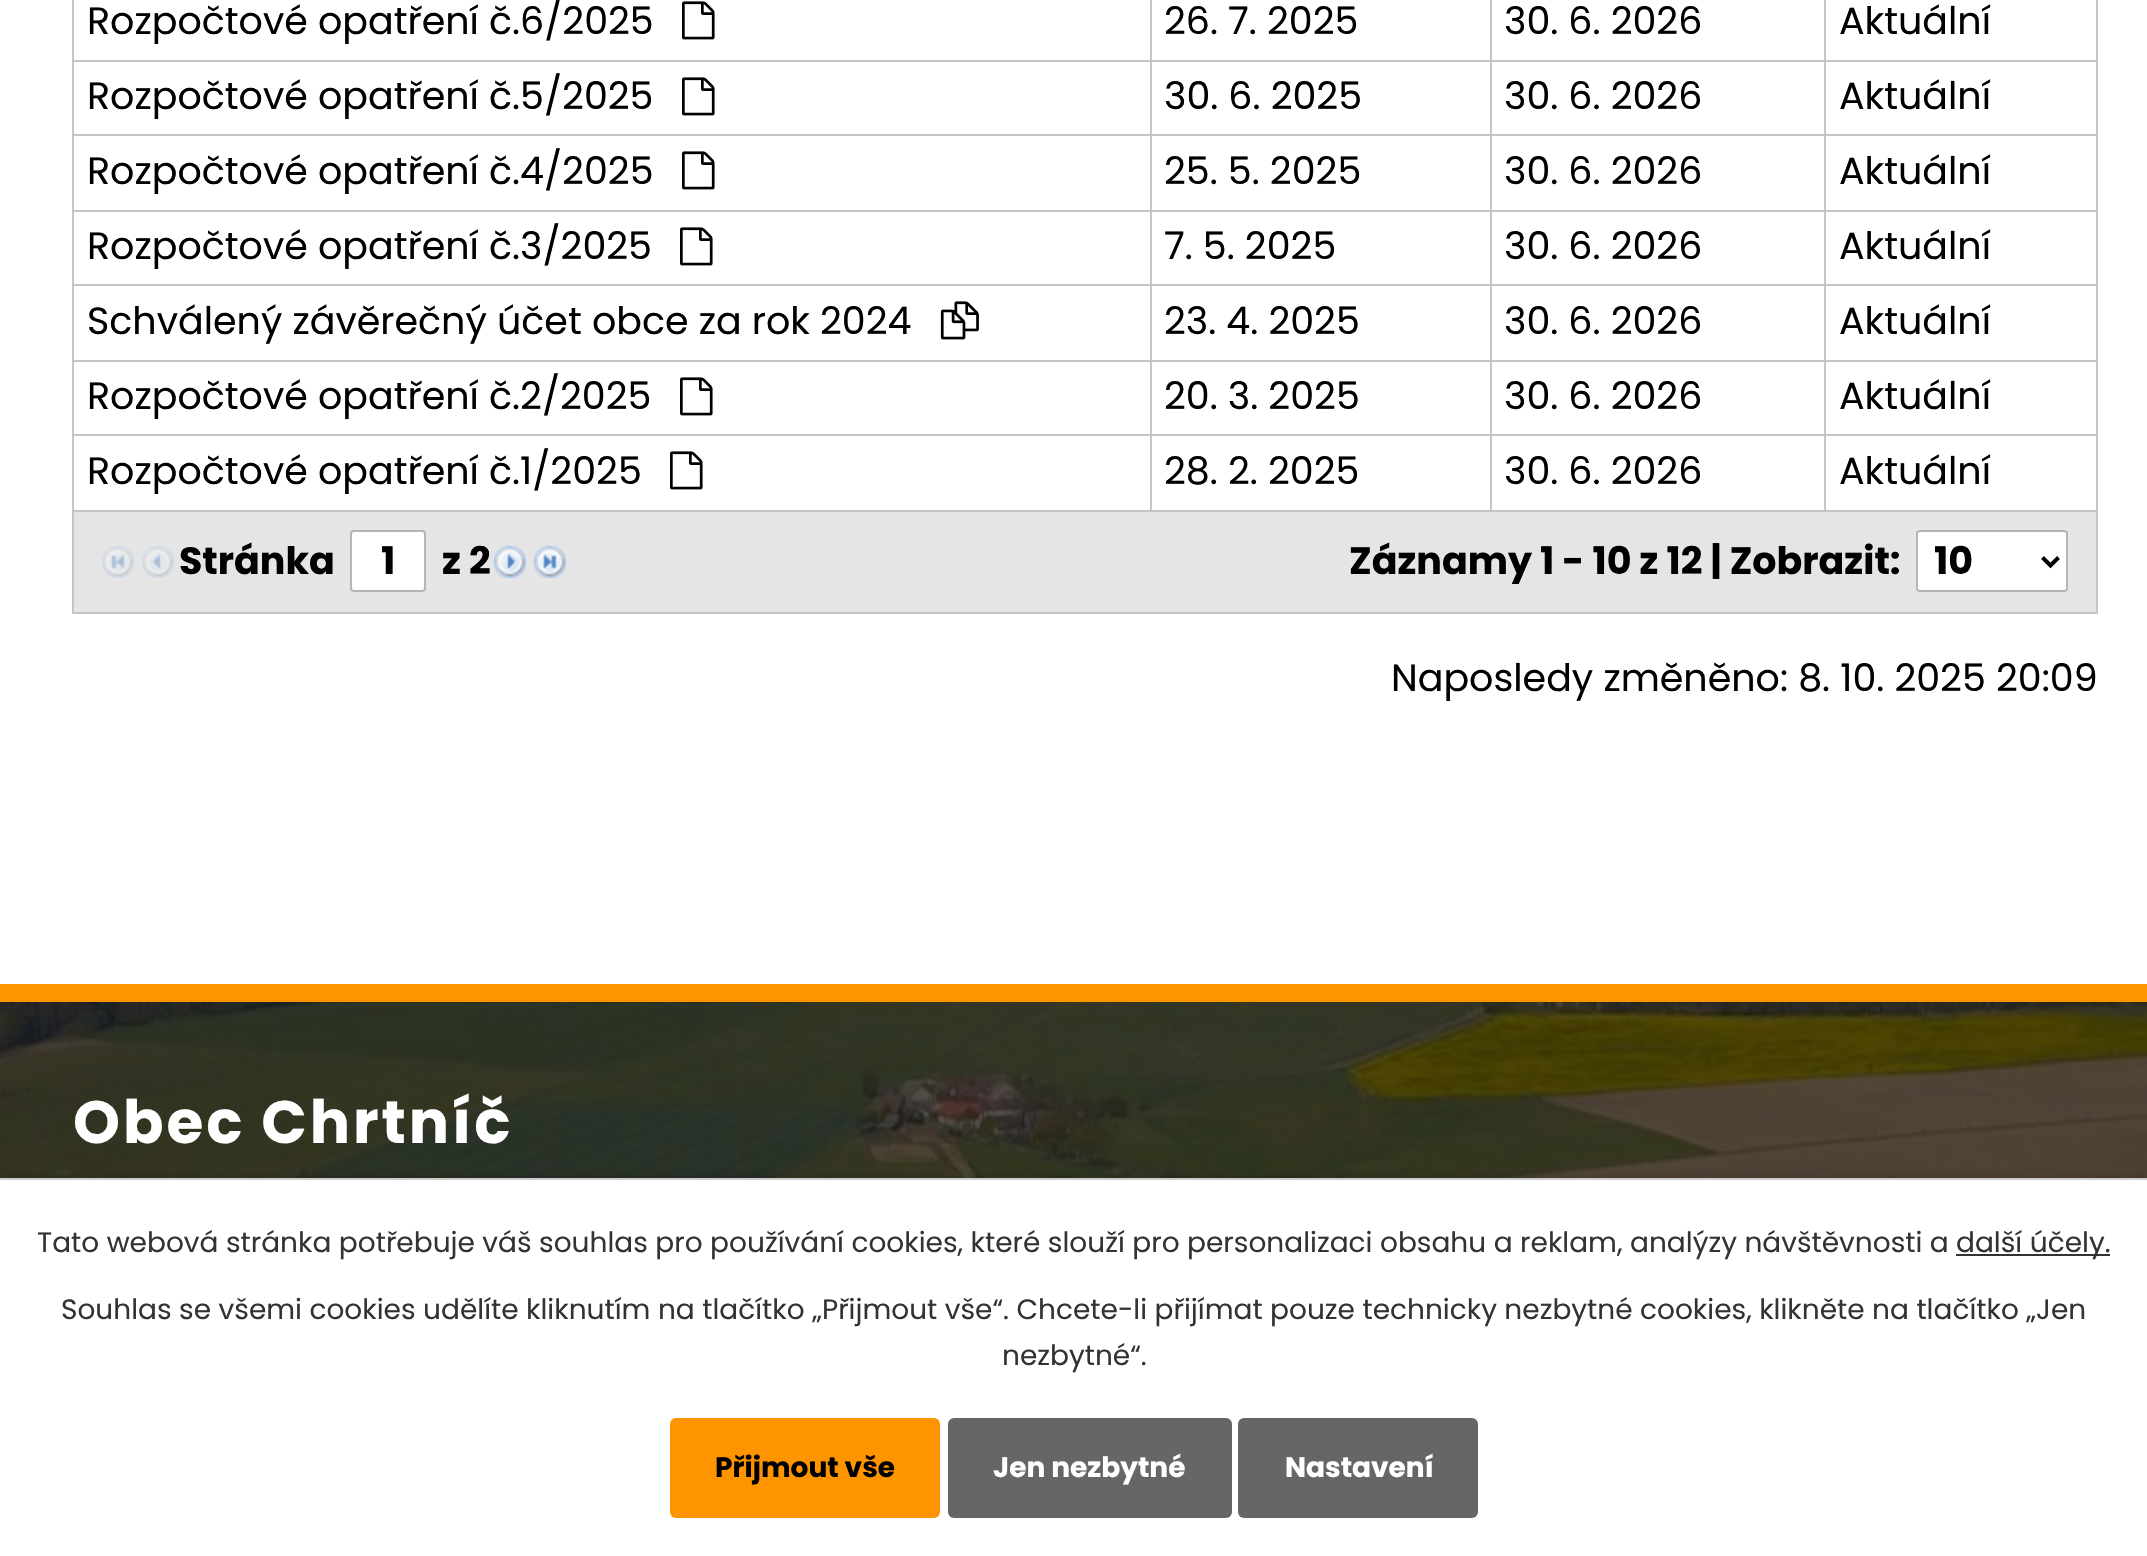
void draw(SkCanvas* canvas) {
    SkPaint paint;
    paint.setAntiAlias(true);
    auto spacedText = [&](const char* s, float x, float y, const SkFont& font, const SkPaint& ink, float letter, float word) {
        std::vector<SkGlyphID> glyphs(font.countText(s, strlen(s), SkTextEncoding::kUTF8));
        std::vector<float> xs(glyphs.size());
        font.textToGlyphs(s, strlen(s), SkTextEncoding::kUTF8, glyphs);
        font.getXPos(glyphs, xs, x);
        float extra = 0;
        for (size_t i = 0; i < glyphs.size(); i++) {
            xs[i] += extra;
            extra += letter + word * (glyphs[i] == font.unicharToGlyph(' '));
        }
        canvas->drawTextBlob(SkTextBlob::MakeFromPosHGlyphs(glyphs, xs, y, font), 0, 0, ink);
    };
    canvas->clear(0xFFFFFFFF);
    SkFont font1(fontMgr->matchFamilyStyle("Poppins", SkFontStyle::Normal()), 38);
    font1.setSubpixel(true);
    paint.setColor(0xFF000000);
    canvas->drawString("Rozpočtové opatření č.6/2025", 87, 34, font1, paint);
    canvas->drawImageRect(SkImages::DeferredFromEncodedData(SkData::MakeFromFileName("img1.png")), SkRect::MakeXYWH(682, 1, 33, 39), SkSamplingOptions());
    paint.setColor(0xFFC5C5C5);
    canvas->drawRect(SkRect::MakeXYWH(1824, 60, 274, 2), paint);
    canvas->drawRect(SkRect::MakeXYWH(1824, 134, 274, 2), paint);
    canvas->drawRect(SkRect::MakeXYWH(1824, 210, 274, 2), paint);
    canvas->drawRect(SkRect::MakeXYWH(1824, 284, 274, 2), paint);
    canvas->drawRect(SkRect::MakeXYWH(1824, 360, 274, 2), paint);
    canvas->drawRect(SkRect::MakeXYWH(1824, 434, 274, 2), paint);
    canvas->drawRect(SkRect::MakeXYWH(2096, 434, 2, 78), paint);
    canvas->drawRect(SkRect::MakeXYWH(1824, 510, 274, 2), paint);
    canvas->drawRect(SkRect::MakeXYWH(1824, 434, 2, 78), paint);
    canvas->drawRect(SkRect::MakeXYWH(1490, 434, 336, 2), paint);
    canvas->drawRect(SkRect::MakeXYWH(1824, 360, 2, 76), paint);
    canvas->drawRect(SkRect::MakeXYWH(1490, 360, 336, 2), paint);
    canvas->drawRect(SkRect::MakeXYWH(1824, 284, 2, 78), paint);
    canvas->drawRect(SkRect::MakeXYWH(1490, 284, 336, 2), paint);
    canvas->drawRect(SkRect::MakeXYWH(1824, 210, 2, 76), paint);
    canvas->drawRect(SkRect::MakeXYWH(1490, 210, 336, 2), paint);
    canvas->drawRect(SkRect::MakeXYWH(1824, 134, 2, 78), paint);
    canvas->drawRect(SkRect::MakeXYWH(1490, 134, 336, 2), paint);
    canvas->drawRect(SkRect::MakeXYWH(1824, 60, 2, 76), paint);
    canvas->drawRect(SkRect::MakeXYWH(1490, 60, 336, 2), paint);
    canvas->drawRect(SkRect::MakeXYWH(1490, 510, 336, 2), paint);
    canvas->drawRect(SkRect::MakeXYWH(1490, 434, 2, 78), paint);
    canvas->drawRect(SkRect::MakeXYWH(1150, 434, 342, 2), paint);
    canvas->drawRect(SkRect::MakeXYWH(1490, 360, 2, 76), paint);
    canvas->drawRect(SkRect::MakeXYWH(1150, 360, 342, 2), paint);
    canvas->drawRect(SkRect::MakeXYWH(1490, 284, 2, 78), paint);
    canvas->drawRect(SkRect::MakeXYWH(1150, 284, 342, 2), paint);
    canvas->drawRect(SkRect::MakeXYWH(1490, 210, 2, 76), paint);
    canvas->drawRect(SkRect::MakeXYWH(1150, 210, 342, 2), paint);
    canvas->drawRect(SkRect::MakeXYWH(1490, 134, 2, 78), paint);
    canvas->drawRect(SkRect::MakeXYWH(1150, 134, 342, 2), paint);
    canvas->drawRect(SkRect::MakeXYWH(1490, 60, 2, 76), paint);
    canvas->drawRect(SkRect::MakeXYWH(1150, 60, 342, 2), paint);
    canvas->drawRect(SkRect::MakeXYWH(1150, 510, 342, 2), paint);
    canvas->drawRect(SkRect::MakeXYWH(1150, 434, 2, 78), paint);
    canvas->drawRect(SkRect::MakeXYWH(72, 434, 1080, 2), paint);
    canvas->drawRect(SkRect::MakeXYWH(1150, 360, 2, 76), paint);
    canvas->drawRect(SkRect::MakeXYWH(72, 360, 1080, 2), paint);
    canvas->drawRect(SkRect::MakeXYWH(1150, 284, 2, 78), paint);
    canvas->drawRect(SkRect::MakeXYWH(72, 284, 1080, 2), paint);
    canvas->drawRect(SkRect::MakeXYWH(1150, 210, 2, 76), paint);
    canvas->drawRect(SkRect::MakeXYWH(72, 210, 1080, 2), paint);
    canvas->drawRect(SkRect::MakeXYWH(1150, 134, 2, 78), paint);
    canvas->drawRect(SkRect::MakeXYWH(72, 134, 1080, 2), paint);
    canvas->drawRect(SkRect::MakeXYWH(1150, 60, 2, 76), paint);
    canvas->drawRect(SkRect::MakeXYWH(72, 60, 1080, 2), paint);
    canvas->drawRect(SkRect::MakeXYWH(1150, 0, 2, 62), paint);
    paint.setColor(0xFF000000);
    canvas->drawString("26. 7. 2025", 1164, 34, font1, paint);
    paint.setColor(0xFFC5C5C5);
    canvas->drawRect(SkRect::MakeXYWH(1490, 0, 2, 62), paint);
    paint.setColor(0xFF000000);
    canvas->drawString("30. 6. 2026", 1504, 34, font1, paint);
    paint.setColor(0xFFC5C5C5);
    canvas->drawRect(SkRect::MakeXYWH(1824, 0, 2, 62), paint);
    paint.setColor(0xFF000000);
    canvas->drawString("Aktuální", 1839, 34, font1, paint);
    paint.setColor(0xFFC5C5C5);
    canvas->drawRect(SkRect::MakeXYWH(72, 510, 1080, 2), paint);
    canvas->drawRect(SkRect::MakeXYWH(72, 434, 2, 78), paint);
    canvas->drawRect(SkRect::MakeXYWH(72, 360, 2, 76), paint);
    canvas->drawRect(SkRect::MakeXYWH(72, 284, 2, 78), paint);
    canvas->drawRect(SkRect::MakeXYWH(72, 210, 2, 76), paint);
    canvas->drawRect(SkRect::MakeXYWH(72, 134, 2, 78), paint);
    canvas->drawRect(SkRect::MakeXYWH(72, 0, 2, 136), paint);
    paint.setColor(0xFF000000);
    canvas->drawString("Rozpočtové opatření č.5/2025", 87, 109, font1, paint);
    canvas->drawImageRect(SkImages::DeferredFromEncodedData(SkData::MakeFromFileName("img1.png")), SkRect::MakeXYWH(682, 77, 33, 39), SkSamplingOptions());
    canvas->drawString("30. 6. 2025", 1164, 109, font1, paint);
    canvas->drawString("30. 6. 2026", 1504, 109, font1, paint);
    paint.setColor(0xFFC5C5C5);
    canvas->drawRect(SkRect::MakeXYWH(2096, 360, 2, 76), paint);
    canvas->drawRect(SkRect::MakeXYWH(2096, 284, 2, 78), paint);
    canvas->drawRect(SkRect::MakeXYWH(2096, 210, 2, 76), paint);
    canvas->drawRect(SkRect::MakeXYWH(2096, 134, 2, 78), paint);
    canvas->drawRect(SkRect::MakeXYWH(2096, 0, 2, 136), paint);
    paint.setColor(0xFF000000);
    canvas->drawString("Aktuální", 1839, 109, font1, paint);
    canvas->drawString("Rozpočtové opatření č.4/2025", 87, 184, font1, paint);
    canvas->drawImageRect(SkImages::DeferredFromEncodedData(SkData::MakeFromFileName("img1.png")), SkRect::MakeXYWH(682, 151, 33, 39), SkSamplingOptions());
    canvas->drawString("25. 5. 2025", 1164, 184, font1, paint);
    canvas->drawString("30. 6. 2026", 1504, 184, font1, paint);
    canvas->drawString("Aktuální", 1839, 184, font1, paint);
    canvas->drawString("Rozpočtové opatření č.3/2025", 87, 259, font1, paint);
    canvas->drawImageRect(SkImages::DeferredFromEncodedData(SkData::MakeFromFileName("img1.png")), SkRect::MakeXYWH(680, 227, 33, 39), SkSamplingOptions());
    canvas->drawString("7. 5. 2025", 1164, 259, font1, paint);
    canvas->drawString("30. 6. 2026", 1504, 259, font1, paint);
    canvas->drawString("Aktuální", 1839, 259, font1, paint);
    canvas->drawString("Schválený závěrečný účet obce za rok 2024", 87, 334, font1, paint);
    canvas->drawImageRect(SkImages::DeferredFromEncodedData(SkData::MakeFromFileName("img2.png")), SkRect::MakeXYWH(940, 301, 39, 39), SkSamplingOptions());
    canvas->drawString("23. 4. 2025", 1164, 334, font1, paint);
    canvas->drawString("30. 6. 2026", 1504, 334, font1, paint);
    canvas->drawString("Aktuální", 1839, 334, font1, paint);
    canvas->drawString("Rozpočtové opatření č.2/2025", 87, 409, font1, paint);
    canvas->drawImageRect(SkImages::DeferredFromEncodedData(SkData::MakeFromFileName("img1.png")), SkRect::MakeXYWH(680, 377, 33, 39), SkSamplingOptions());
    canvas->drawString("20. 3. 2025", 1164, 409, font1, paint);
    canvas->drawString("30. 6. 2026", 1504, 409, font1, paint);
    canvas->drawString("Aktuální", 1839, 409, font1, paint);
    canvas->drawString("Rozpočtové opatření č.1/2025", 87, 484, font1, paint);
    canvas->drawImageRect(SkImages::DeferredFromEncodedData(SkData::MakeFromFileName("img1.png")), SkRect::MakeXYWH(670, 451, 33, 39), SkSamplingOptions());
    canvas->drawString("28. 2. 2025", 1164, 484, font1, paint);
    canvas->drawString("30. 6. 2026", 1504, 484, font1, paint);
    canvas->drawString("Aktuální", 1839, 484, font1, paint);
    paint.setColor(0xFFE5E5E5);
    canvas->drawRect(SkRect::MakeXYWH(74, 512, 2022, 100), paint);
    paint.setColor(0xFFC5C5C5);
    canvas->drawRect(SkRect::MakeXYWH(2096, 510, 2, 104), paint);
    canvas->drawRect(SkRect::MakeXYWH(72, 612, 2026, 2), paint);
    canvas->drawRect(SkRect::MakeXYWH(72, 510, 2, 104), paint);
    canvas->drawImageRect(SkImages::DeferredFromEncodedData(SkData::MakeFromFileName("img3.png")), SkRect::MakeXYWH(102, 546, 32, 32), SkSamplingOptions());
    canvas->drawImageRect(SkImages::DeferredFromEncodedData(SkData::MakeFromFileName("img4.png")), SkRect::MakeXYWH(142, 546, 32, 32), SkSamplingOptions());
    SkFont font2(fontMgr->matchFamilyStyle("Poppins", SkFontStyle::Bold()), 38);
    font2.setSubpixel(true);
    paint.setColor(0xFF000000);
    canvas->drawString("Stránka", 179, 574, font2, paint);
    paint.setColor(0xFFFFFFFF);
    canvas->drawRoundRect(SkRect::MakeXYWH(351, 531, 74, 60), 3, 3, paint);
    paint.setStyle(SkPaint::kStroke_Style);
    paint.setStrokeWidth(2);
    paint.setColor(0xFFB5B5B5);
    canvas->drawRoundRect(SkRect::MakeXYWH(351, 531, 74, 60), 3, 3, paint);
    paint.setStyle(SkPaint::kFill_Style);
    paint.setColor(0xFF000000);
    canvas->drawString("1", 381, 574, font2, paint);
    canvas->drawString("z 2", 442, 574, font2, paint);
    canvas->drawImageRect(SkImages::DeferredFromEncodedData(SkData::MakeFromFileName("img5.png")), SkRect::MakeXYWH(494, 546, 32, 32), SkSamplingOptions());
    canvas->drawImageRect(SkImages::DeferredFromEncodedData(SkData::MakeFromFileName("img6.png")), SkRect::MakeXYWH(534, 546, 32, 32), SkSamplingOptions());
    canvas->drawString("Záznamy 1 - 10 z 12 | Zobrazit:", 1349, 574, font2, paint);
    paint.setColor(0xFFFFFFFF);
    canvas->drawRoundRect(SkRect::MakeXYWH(1917, 531, 150, 60), 3, 3, paint);
    paint.setStyle(SkPaint::kStroke_Style);
    paint.setColor(0xFFB5B5B5);
    canvas->drawRoundRect(SkRect::MakeXYWH(1917, 531, 150, 60), 3, 3, paint);
    paint.setStrokeWidth(4);
    paint.setColor(0xFF000000);
    canvas->drawPath(SkPathBuilder().moveTo(2042.5f, 557.5f).lineTo(2050.5f, 565.5f).lineTo(2058.5f, 557.5f).detach(), paint);
    paint.setStyle(SkPaint::kFill_Style);
    canvas->drawString("10", 1934, 574, font2, paint);
    canvas->drawString("Naposledy změněno: 8. 10. 2025 20:09", 1391, 691, font1, paint);
    canvas->drawImageRect(SkImages::DeferredFromEncodedData(SkData::MakeFromFileName("img7.png")), SkRect::MakeXYWH(0, 1002, 2147, 176), SkSamplingOptions());
    paint.setColor(0xFFFE9400);
    canvas->drawRect(SkRect::MakeXYWH(0, 984, 2147, 18), paint);
    SkFont font3(fontMgr->matchFamilyStyle("Poppins", SkFontStyle::Bold()), 59.75f);
    font3.setSubpixel(true);
    paint.setColor(0xFFFFFFFF);
    spacedText("Obec Chrtníč", 73, 1143, font3, paint, 3, 0);
    paint.setColor(0x33000000);
    paint.setMaskFilter(SkMaskFilter::MakeBlur(kNormal_SkBlurStyle, 5));
    canvas->drawRect(SkRect::MakeXYWH(0, 1178, 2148, 378), paint);
    paint.setMaskFilter(nullptr);
    paint.setColor(0xFFFFFFFF);
    canvas->drawRect(SkRect::MakeXYWH(0, 1180, 2147, 376), paint);
    paint.setColor(0xFFCCCCCC);
    canvas->drawRect(SkRect::MakeXYWH(0, 1178, 2147, 2), paint);
    SkFont font4(fontMgr->matchFamilyStyle("Poppins", SkFontStyle::Normal()), 28);
    font4.setSubpixel(true);
    paint.setColor(0xFF333333);
    canvas->drawString("Tato webová stránka potřebuje váš souhlas pro používání cookies, které slouží pro personalizaci obsahu a reklam, analýzy návštěvnosti a", 37, 1252, font4, paint);
    canvas->drawRect(SkRect::MakeXYWH(1956, 1254, 154, 2), paint);
    canvas->drawString("další účely.", 1956, 1252, font4, paint);
    canvas->drawString("Souhlas se všemi cookies udělíte kliknutím na tlačítko „Přijmout vše“. Chcete-li přijímat pouze technicky nezbytné cookies, klikněte na tlačítko „Jen", 61, 1319, font4, paint);
    canvas->drawString("nezbytné“.", 1002, 1365, font4, paint);
    paint.setColor(0xFFFE9400);
    canvas->drawRoundRect(SkRect::MakeXYWH(670, 1418, 270, 100), 6, 6, paint);
    SkFont font5(fontMgr->matchFamilyStyle("Poppins", SkFontStyle::Bold()), 28);
    font5.setSubpixel(true);
    paint.setColor(0xFF000000);
    canvas->drawString("Přijmout vše", 715, 1477, font5, paint);
    paint.setColor(0xFF666666);
    canvas->drawRoundRect(SkRect::MakeXYWH(948, 1418, 284, 100), 6, 6, paint);
    paint.setColor(0xFFFFFFFF);
    canvas->drawString("Jen nezbytné", 993, 1477, font5, paint);
    paint.setColor(0xFF666666);
    canvas->drawRoundRect(SkRect::MakeXYWH(1238, 1418, 240, 100), 6, 6, paint);
    paint.setColor(0xFFFFFFFF);
    canvas->drawString("Nastavení", 1285, 1477, font5, paint);
}
